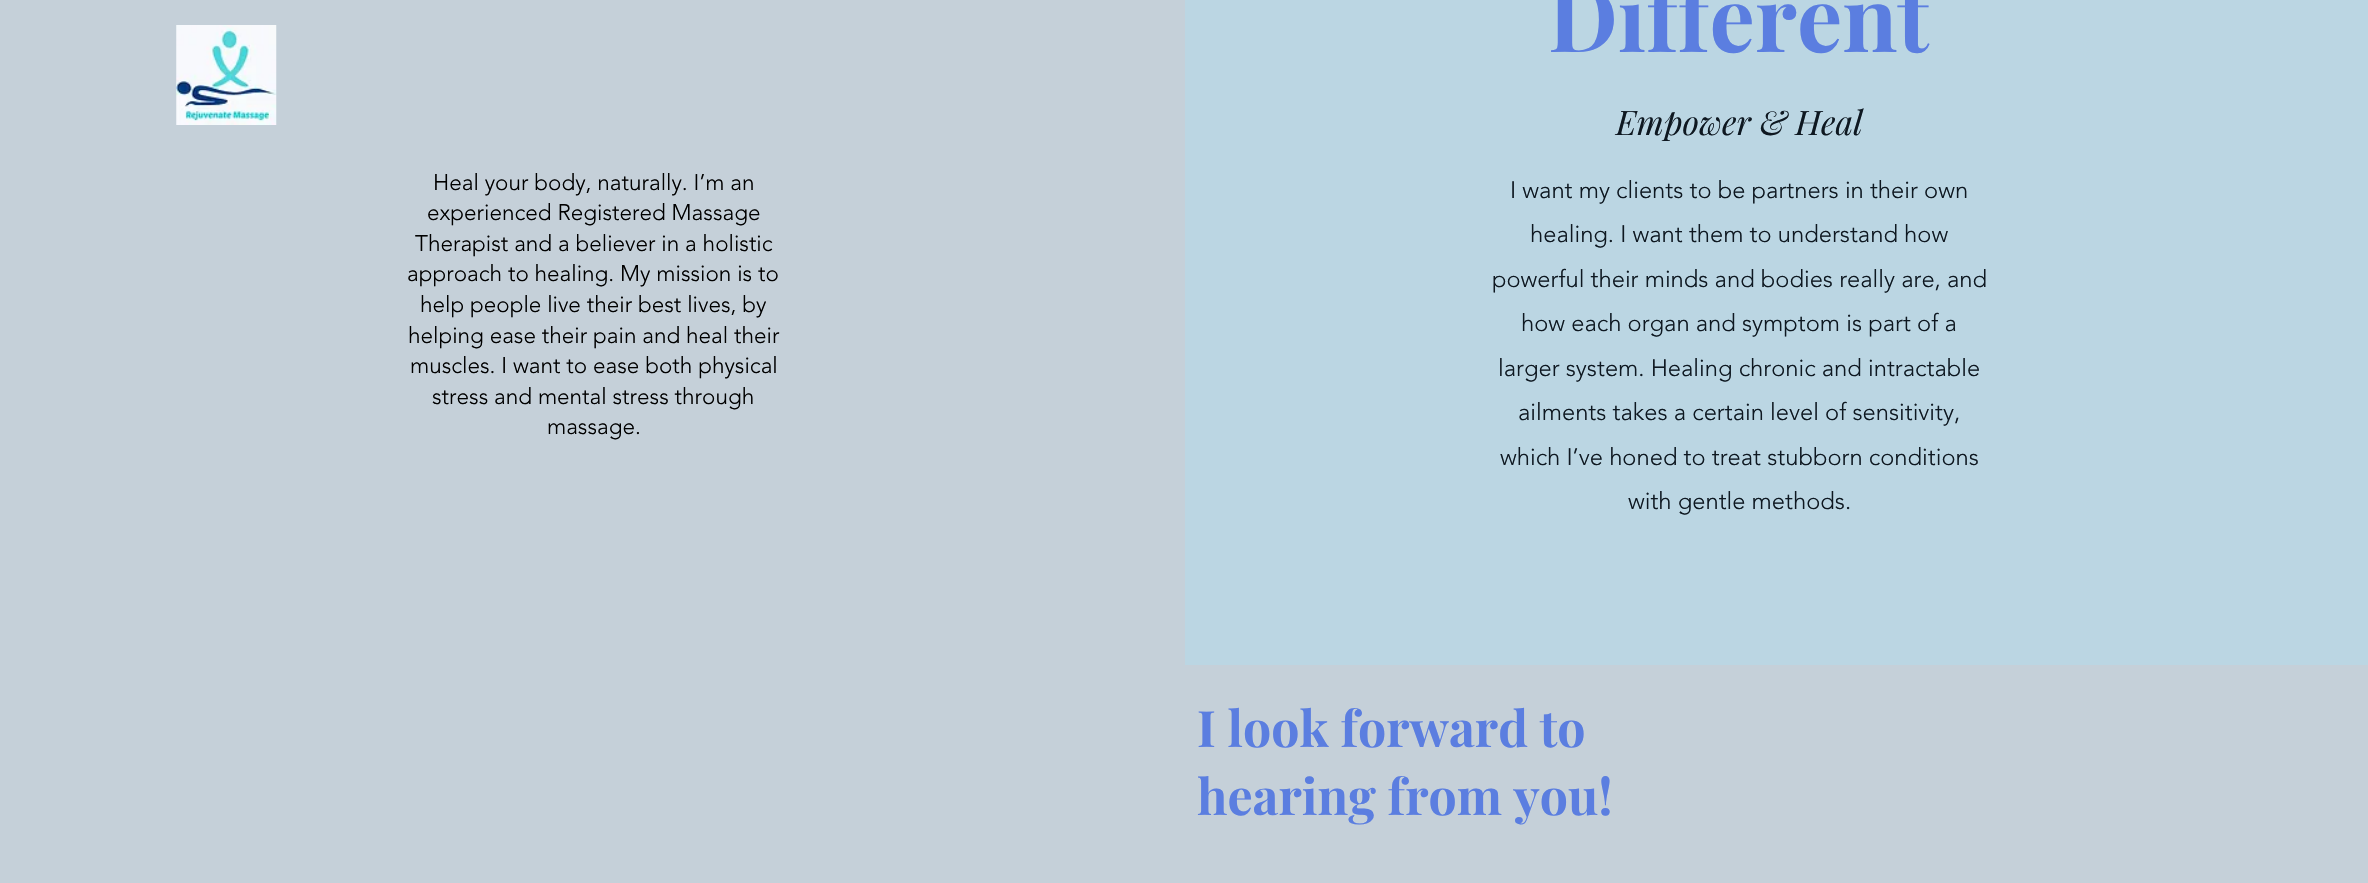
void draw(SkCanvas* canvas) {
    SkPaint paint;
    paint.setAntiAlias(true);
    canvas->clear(0xFFC5D0D9);
    canvas->drawImageRect(SkImages::DeferredFromEncodedData(SkData::MakeFromFileName("img1.png")), SkRect::MakeXYWH(176, 25, 101, 100), SkSamplingOptions());
    SkFont font1(fontMgr->matchFamilyStyle("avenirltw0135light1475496", SkFontStyle(300, SkFontStyle::kNormal_Width, SkFontStyle::kUpright_Slant)), 22.5f);
    font1.setSubpixel(true);
    paint.setColor(0xFF000000);
    canvas->drawString("Heal your body, naturally. I’m an", 433, 190, font1, paint);
    canvas->drawString("experienced Registered Massage", 427, 220, font1, paint);
    canvas->drawString("Therapist and a believer in a holistic", 415, 251, font1, paint);
    canvas->drawString("approach to healing. My mission is to", 407, 281, font1, paint);
    canvas->drawString("help people live their best lives, by", 420, 312, font1, paint);
    canvas->drawString("helping ease their pain and heal their", 408, 343, font1, paint);
    canvas->drawString("muscles. I want to ease both physical", 410, 373, font1, paint);
    canvas->drawString("stress and mental stress through", 432, 404, font1, paint);
    canvas->drawString("massage.", 547, 434, font1, paint);
    paint.setColor(0xFFBBD6E3);
    canvas->drawRect(SkRect::MakeXYWH(1185, 0, 1183, 665), paint);
    SkFont font2(fontMgr->matchFamilyStyle("Playfair Display", SkFontStyle::Bold()), 90);
    font2.setSubpixel(true);
    paint.setColor(0xFF5B7EE0);
    canvas->drawString("Different", 1548, 52, font2, paint);
    SkFont font3(fontMgr->matchFamilyStyle("Playfair Display", SkFontStyle::Italic()), 33.75f);
    font3.setSubpixel(true);
    paint.setColor(0xFF0E1821);
    canvas->drawString("Empower & Heal", 1616, 135, font3, paint);
    SkFont font4(fontMgr->matchFamilyStyle("avenirltw0135light1475496", SkFontStyle(300, SkFontStyle::kNormal_Width, SkFontStyle::kUpright_Slant)), 23.75f);
    font4.setSubpixel(true);
    canvas->drawString("I want my clients to be partners in their own", 1510, 198, font4, paint);
    canvas->drawString("healing. I want them to understand how", 1530, 242, font4, paint);
    canvas->drawString("powerful their minds and bodies really are, and", 1492, 287, font4, paint);
    canvas->drawString("how each organ and symptom is part of a", 1521, 331, font4, paint);
    canvas->drawString("larger system. Healing chronic and intractable", 1498, 376, font4, paint);
    canvas->drawString("ailments takes a certain level of sensitivity,", 1518, 420, font4, paint);
    canvas->drawString("which I’ve honed to treat stubborn conditions", 1500, 465, font4, paint);
    canvas->drawString("with gentle methods.", 1628, 509, font4, paint);
    SkFont font5(fontMgr->matchFamilyStyle("Playfair Display", SkFontStyle::Bold()), 50);
    font5.setSubpixel(true);
    paint.setColor(0xFF5B7EE0);
    canvas->drawString("I look forward to", 1197, 747, font5, paint);
    canvas->drawString("hearing from you!", 1197, 815, font5, paint);
}
